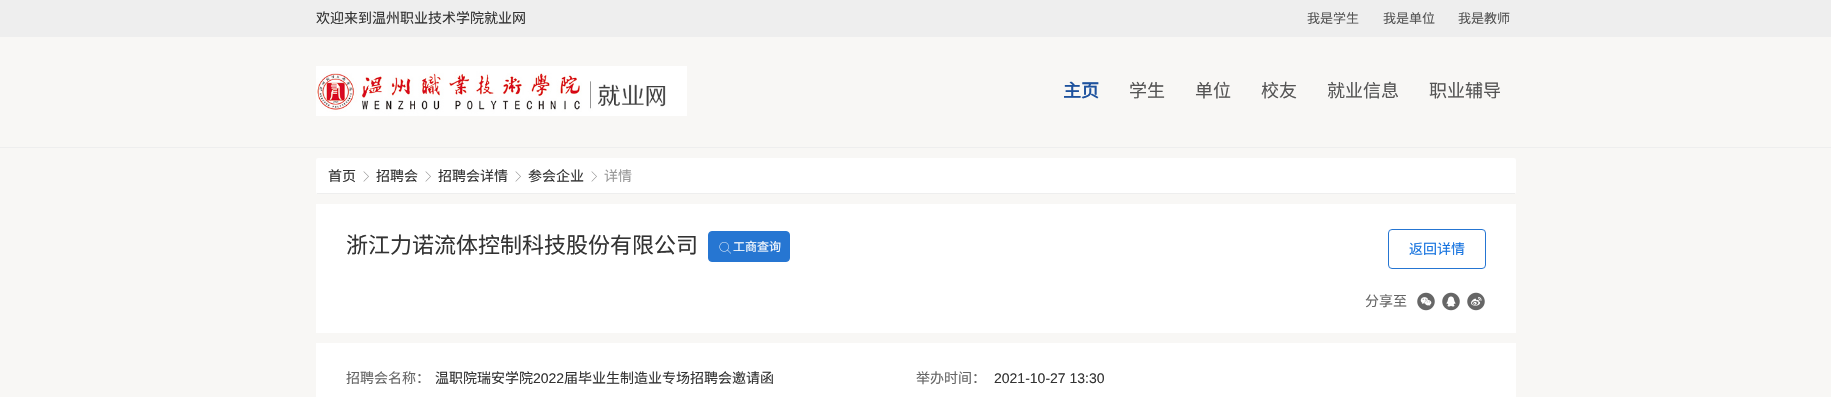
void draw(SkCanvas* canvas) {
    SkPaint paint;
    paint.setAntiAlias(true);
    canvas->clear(0xFFF8F7F5);
    paint.setColor(0xFFEEEEEE);
    canvas->drawRect(SkRect::MakeXYWH(0, 0, 1831, 37), paint);
    SkFont font1(fontMgr->matchFamilyStyle("Noto Sans CJK SC", SkFontStyle::Normal()), 14);
    font1.setSubpixel(true);
    paint.setColor(0xFF333333);
    canvas->drawString("欢迎来到温州职业技术学院就业网", 316, 23, font1, paint);
    SkFont font2(fontMgr->matchFamilyStyle("Noto Sans CJK SC", SkFontStyle::Normal()), 13);
    font2.setSubpixel(true);
    paint.setColor(0xFF555555);
    canvas->drawString("我是学生", 1307, 23, font2, paint);
    canvas->drawString("我是单位", 1383, 23, font2, paint);
    canvas->drawString("我是教师", 1458, 23, font2, paint);
    paint.setColor(0xFFEEEEEE);
    canvas->drawRect(SkRect::MakeXYWH(0, 147, 1831, 1), paint);
    canvas->drawImageRect(SkImages::DeferredFromEncodedData(SkData::MakeFromFileName("img1.png")), SkRect::MakeXYWH(316, 66, 371, 50), SkSamplingOptions());
    SkFont font3(fontMgr->matchFamilyStyle("Noto Sans CJK SC", SkFontStyle::Bold()), 18);
    font3.setSubpixel(true);
    paint.setColor(0xFF1E529E);
    canvas->drawString("主页", 1063, 97, font3, paint);
    SkFont font4(fontMgr->matchFamilyStyle("Noto Sans CJK SC", SkFontStyle::Normal()), 18);
    font4.setSubpixel(true);
    paint.setColor(0xFF555555);
    canvas->drawString("学生", 1129, 97, font4, paint);
    canvas->drawString("单位", 1195, 97, font4, paint);
    canvas->drawString("校友", 1261, 97, font4, paint);
    canvas->drawString("就业信息", 1327, 97, font4, paint);
    canvas->drawString("职业辅导", 1429, 97, font4, paint);
    paint.setColor(0xFFFFFFFF);
    canvas->drawRoundRect(SkRect::MakeXYWH(316, 158, 1200, 36), 2, 2, paint);
    paint.setColor(0xFFEEEEEE);
    canvas->drawRect(SkRect::MakeXYWH(317, 193, 1198, 1), paint);
    paint.setColor(0xFF333333);
    canvas->drawString("首页", 328, 181, font1, paint);
    canvas->drawImageRect(SkImages::DeferredFromEncodedData(SkData::MakeFromFileName("img2.png")), SkRect::MakeXYWH(363, 171, 6, 11), SkSamplingOptions());
    canvas->drawString("招聘会", 376, 181, font1, paint);
    canvas->drawImageRect(SkImages::DeferredFromEncodedData(SkData::MakeFromFileName("img2.png")), SkRect::MakeXYWH(425, 171, 6, 11), SkSamplingOptions());
    canvas->drawString("招聘会详情", 438, 181, font1, paint);
    canvas->drawImageRect(SkImages::DeferredFromEncodedData(SkData::MakeFromFileName("img2.png")), SkRect::MakeXYWH(515, 171, 6, 11), SkSamplingOptions());
    canvas->drawString("参会企业", 528, 181, font1, paint);
    canvas->drawImageRect(SkImages::DeferredFromEncodedData(SkData::MakeFromFileName("img2.png")), SkRect::MakeXYWH(591, 171, 6, 11), SkSamplingOptions());
    paint.setColor(0xFF999999);
    canvas->drawString("详情", 604, 181, font1, paint);
    paint.setColor(0xFFFFFFFF);
    canvas->drawRect(SkRect::MakeXYWH(316, 204, 1200, 193), paint);
    SkFont font5(fontMgr->matchFamilyStyle("Noto Sans CJK SC", SkFontStyle::Normal()), 22);
    font5.setSubpixel(true);
    paint.setColor(0xFF333333);
    canvas->drawString("浙江力诺流体控制科技股份有限公司", 346, 253, font5, paint);
    paint.setColor(0xFF2676D2);
    canvas->drawRoundRect(SkRect::MakeXYWH(708.5f, 231.5f, 81, 30), 3.5f, 3.5f, paint);
    paint.setStyle(SkPaint::kStroke_Style);
    paint.setStrokeWidth(1);
    canvas->drawRoundRect(SkRect::MakeXYWH(708.5f, 231.5f, 81, 30), 3.5f, 3.5f, paint);
    canvas->drawImageRect(SkImages::DeferredFromEncodedData(SkData::MakeFromFileName("img3.png")), SkRect::MakeXYWH(719, 242, 12, 12), SkSamplingOptions());
    SkFont font6(fontMgr->matchFamilyStyle("Noto Sans CJK SC", SkFontStyle::Normal()), 12);
    font6.setSubpixel(true);
    paint.setStyle(SkPaint::kFill_Style);
    paint.setColor(0xFFFFFFFF);
    canvas->drawString("工商查询", 733, 251, font6, paint);
    paint.setStyle(SkPaint::kStroke_Style);
    paint.setColor(0xFF2575D2);
    canvas->drawRoundRect(SkRect::MakeXYWH(1388.5f, 229.5f, 97, 39), 3.5f, 3.5f, paint);
    paint.setStyle(SkPaint::kFill_Style);
    paint.setColor(0xFF1472DF);
    canvas->drawString("返回详情", 1409, 254, font1, paint);
    paint.setColor(0xFF666666);
    canvas->drawString("分享至", 1365, 306, font1, paint);
    canvas->drawImageRect(SkImages::DeferredFromEncodedData(SkData::MakeFromFileName("img4.png")), SkRect::MakeXYWH(1417, 292, 18, 19), SkSamplingOptions());
    canvas->drawImageRect(SkImages::DeferredFromEncodedData(SkData::MakeFromFileName("img5.png")), SkRect::MakeXYWH(1442, 292, 18, 19), SkSamplingOptions());
    canvas->drawImageRect(SkImages::DeferredFromEncodedData(SkData::MakeFromFileName("img6.png")), SkRect::MakeXYWH(1467, 292, 18, 19), SkSamplingOptions());
    paint.setColor(0xFFF8F7F5);
    canvas->drawRect(SkRect::MakeXYWH(316, 333, 1200, 10), paint);
    paint.setColor(0xFF666666);
    canvas->drawString("招聘会名称：", 346, 383, font1, paint);
    paint.setColor(0xFF333333);
    canvas->drawString("温职院瑞安学院", 435, 383, font1, paint);
    SkFont font7(fontMgr->matchFamilyStyle("Liberation Sans", SkFontStyle::Normal()), 14);
    font7.setSubpixel(true);
    canvas->drawString("2022", 533, 383, font7, paint);
    canvas->drawString("届毕业生制造业专场招聘会邀请函", 564, 383, font1, paint);
    paint.setColor(0xFF666666);
    canvas->drawString("举办时间：", 916, 383, font1, paint);
    paint.setColor(0xFF333333);
    canvas->drawString("2021-10-27 13:30", 994, 383, font7, paint);
}
